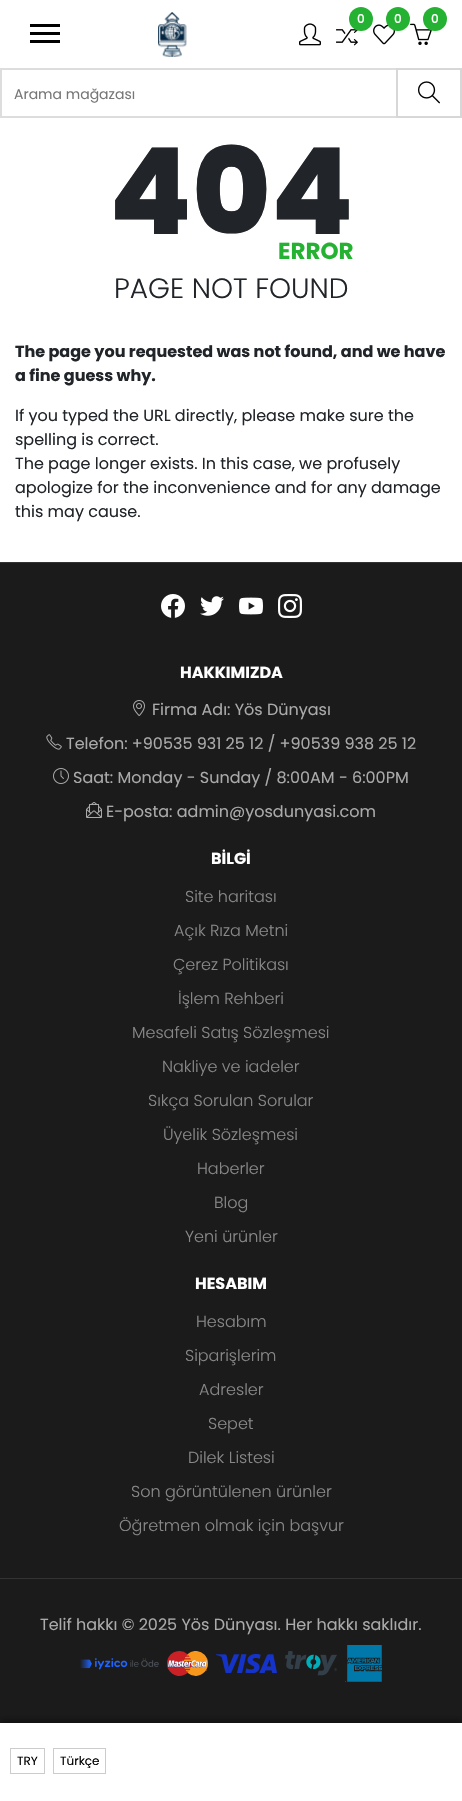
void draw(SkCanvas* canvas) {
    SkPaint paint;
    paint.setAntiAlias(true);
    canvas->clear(0xFFFFFFFF);
    canvas->drawImageRect(SkImages::DeferredFromEncodedData(SkData::MakeFromFileName("img1.png")), SkRect::MakeXYWH(158, 12, 29, 45), SkSamplingOptions());
    canvas->drawImageRect(SkImages::DeferredFromEncodedData(SkData::MakeFromFileName("img2.png")), SkRect::MakeXYWH(336, 27, 22, 19), SkSamplingOptions());
    paint.setColor(0xFF25B232);
    canvas->drawCircle(361, 19, 12, paint);
    SkFont font1(fontMgr->matchFamilyStyle("Poppins", SkFontStyle(500, SkFontStyle::kNormal_Width, SkFontStyle::kUpright_Slant)), 12);
    font1.setSubpixel(true);
    paint.setColor(0xFFFFFFFF);
    canvas->drawString("0", 357, 23, font1, paint);
    canvas->drawImageRect(SkImages::DeferredFromEncodedData(SkData::MakeFromFileName("img3.png")), SkRect::MakeXYWH(373, 24, 23, 21), SkSamplingOptions());
    paint.setColor(0xFF25B232);
    canvas->drawCircle(398, 19, 12, paint);
    paint.setColor(0xFFFFFFFF);
    canvas->drawString("0", 394, 23, font1, paint);
    canvas->drawImageRect(SkImages::DeferredFromEncodedData(SkData::MakeFromFileName("img4.png")), SkRect::MakeXYWH(410, 23, 22, 22), SkSamplingOptions());
    paint.setColor(0xFF25B232);
    canvas->drawCircle(435, 19, 12, paint);
    paint.setColor(0xFFFFFFFF);
    canvas->drawString("0", 431, 23, font1, paint);
    canvas->drawImageRect(SkImages::DeferredFromEncodedData(SkData::MakeFromFileName("img5.png")), SkRect::MakeXYWH(299, 23, 22, 23), SkSamplingOptions());
    paint.setStyle(SkPaint::kStroke_Style);
    paint.setStrokeWidth(2);
    paint.setColor(0xFFDDDDDD);
    canvas->drawRect(SkRect::MakeXYWH(1, 69, 396, 48), paint);
    SkFont font2(fontMgr->matchFamilyStyle("Poppins", SkFontStyle::Normal()), 14);
    font2.setSubpixel(true);
    paint.setStyle(SkPaint::kFill_Style);
    paint.setColor(0xFF777777);
    canvas->drawString("Arama mağazası", 14, 99, font2, paint);
    paint.setStyle(SkPaint::kStroke_Style);
    paint.setColor(0xFFD7D7D7);
    canvas->drawRect(SkRect::MakeXYWH(397, 69, 64, 48), paint);
    canvas->drawImageRect(SkImages::DeferredFromEncodedData(SkData::MakeFromFileName("img6.png")), SkRect::MakeXYWH(418, 81, 22, 23), SkSamplingOptions());
    paint.setStyle(SkPaint::kFill_Style);
    paint.setColor(0xFF000000);
    canvas->drawRect(SkRect::MakeXYWH(30, 24, 30, 3), paint);
    canvas->drawRect(SkRect::MakeXYWH(30, 32, 30, 3), paint);
    canvas->drawRect(SkRect::MakeXYWH(30, 40, 30, 3), paint);
    paint.setColor(0xFF1C1B1B);
    canvas->drawRect(SkRect::MakeXYWH(0, 563, 462, 1160), paint);
    paint.setColor(0x3B000000);
    paint.setMaskFilter(SkMaskFilter::MakeBlur(kNormal_SkBlurStyle, 3));
    canvas->drawRect(SkRect::MakeXYWH(0, 1720, 462, 78), paint);
    paint.setMaskFilter(nullptr);
    paint.setColor(0x29000000);
    paint.setMaskFilter(SkMaskFilter::MakeBlur(kNormal_SkBlurStyle, 3));
    canvas->drawRect(SkRect::MakeXYWH(0, 1720, 462, 78), paint);
    paint.setMaskFilter(nullptr);
    paint.setColor(0xFFFFFFFF);
    canvas->drawRect(SkRect::MakeXYWH(0, 1723, 462, 78), paint);
    paint.setStyle(SkPaint::kStroke_Style);
    paint.setStrokeWidth(1);
    paint.setColor(0xFFCCCCCC);
    canvas->drawRect(SkRect::MakeXYWH(10.5f, 1748.5f, 34, 25), paint);
    SkFont font3(fontMgr->matchFamilyStyle("Poppins", SkFontStyle::Normal()), 12);
    font3.setSubpixel(true);
    paint.setStyle(SkPaint::kFill_Style);
    paint.setColor(0xFF000000);
    canvas->drawString("TRY", 17, 1765, font3, paint);
    paint.setStyle(SkPaint::kStroke_Style);
    paint.setColor(0xFFCCCCCC);
    canvas->drawRect(SkRect::MakeXYWH(53.5f, 1748.5f, 52, 25), paint);
    paint.setStyle(SkPaint::kFill_Style);
    paint.setColor(0xFF000000);
    canvas->drawString("Türkçe", 60, 1765, font3, paint);
    SkFont font4(fontMgr->matchFamilyStyle("Poppins", SkFontStyle(800, SkFontStyle::kNormal_Width, SkFontStyle::kUpright_Slant)), 120);
    font4.setSubpixel(true);
    paint.setColor(0xFF212529);
    canvas->drawString("404", 109, 234, font4, paint);
    SkFont font5(fontMgr->matchFamilyStyle("Poppins", SkFontStyle::Bold()), 23);
    font5.setSubpixel(true);
    paint.setColor(0xFF25B232);
    canvas->drawString("ERROR", 278, 259, font5, paint);
    SkFont font6(fontMgr->matchFamilyStyle("Poppins", SkFontStyle(300, SkFontStyle::kNormal_Width, SkFontStyle::kUpright_Slant)), 28);
    font6.setSubpixel(true);
    paint.setColor(0xFF212529);
    canvas->drawString("PAGE NOT FOUND", 114, 298, font6, paint);
    SkFont font7(fontMgr->matchFamilyStyle("Poppins", SkFontStyle::Bold()), 16);
    font7.setSubpixel(true);
    canvas->drawString("The page you requested was not found, and we have", 15, 357, font7, paint);
    canvas->drawString("a fine guess why.", 15, 381, font7, paint);
    SkFont font8(fontMgr->matchFamilyStyle("Poppins", SkFontStyle::Normal()), 16);
    font8.setSubpixel(true);
    canvas->drawString("If you typed the URL directly, please make sure the", 15, 421, font8, paint);
    canvas->drawString("spelling is correct.", 15, 445, font8, paint);
    canvas->drawString("The page longer exists. In this case, we profusely", 15, 469, font8, paint);
    canvas->drawString("apologize for the inconvenience and for any damage", 15, 493, font8, paint);
    canvas->drawString("this may cause.", 15, 517, font8, paint);
    paint.setColor(0xFF333333);
    canvas->drawRect(SkRect::MakeXYWH(0, 562, 462, 1), paint);
    canvas->drawImageRect(SkImages::DeferredFromEncodedData(SkData::MakeFromFileName("img7.png")), SkRect::MakeXYWH(161, 594, 24, 24), SkSamplingOptions());
    canvas->drawImageRect(SkImages::DeferredFromEncodedData(SkData::MakeFromFileName("img8.png")), SkRect::MakeXYWH(200, 596, 24, 20), SkSamplingOptions());
    canvas->drawImageRect(SkImages::DeferredFromEncodedData(SkData::MakeFromFileName("img9.png")), SkRect::MakeXYWH(239, 597, 24, 18), SkSamplingOptions());
    canvas->drawImageRect(SkImages::DeferredFromEncodedData(SkData::MakeFromFileName("img10.png")), SkRect::MakeXYWH(278, 594, 24, 24), SkSamplingOptions());
    paint.setColor(0xFFFFFFFF);
    canvas->drawString("HAKKIMIZDA", 180, 678, font7, paint);
    canvas->drawImageRect(SkImages::DeferredFromEncodedData(SkData::MakeFromFileName("img11.png")), SkRect::MakeXYWH(133, 700, 12, 16), SkSamplingOptions());
    paint.setColor(0xFFAAAAAA);
    canvas->drawString("Firma Adı: Yös Dünyası", 152, 715, font8, paint);
    canvas->drawImageRect(SkImages::DeferredFromEncodedData(SkData::MakeFromFileName("img12.png")), SkRect::MakeXYWH(46, 734, 16, 16), SkSamplingOptions());
    canvas->drawString("Telefon: +90535 931 25 12 / +90539 938 25 12", 66, 749, font8, paint);
    canvas->drawImageRect(SkImages::DeferredFromEncodedData(SkData::MakeFromFileName("img13.png")), SkRect::MakeXYWH(53, 768, 16, 16), SkSamplingOptions());
    canvas->drawString("Saat: Monday - Sunday / 8:00AM - 6:00PM", 73, 783, font8, paint);
    canvas->drawImageRect(SkImages::DeferredFromEncodedData(SkData::MakeFromFileName("img14.png")), SkRect::MakeXYWH(86, 802, 16, 16), SkSamplingOptions());
    canvas->drawString("E-posta: admin@yosdunyasi.com", 106, 817, font8, paint);
    paint.setColor(0xFFFFFFFF);
    canvas->drawString("BİLGİ", 211, 864, font7, paint);
    SkFont font9(fontMgr->matchFamilyStyle("Poppins", SkFontStyle(300, SkFontStyle::kNormal_Width, SkFontStyle::kUpright_Slant)), 16);
    font9.setSubpixel(true);
    paint.setColor(0xFF888888);
    canvas->drawString("Site haritası", 185, 902, font9, paint);
    canvas->drawString("Açık Rıza Metni", 174, 936, font9, paint);
    canvas->drawString("Çerez Politikası", 173, 970, font9, paint);
    canvas->drawString("İşlem Rehberi", 178, 1004, font9, paint);
    canvas->drawString("Mesafeli Satış Sözleşmesi", 132, 1038, font9, paint);
    canvas->drawString("Nakliye ve iadeler", 162, 1072, font9, paint);
    canvas->drawString("Sıkça Sorulan Sorular", 148, 1106, font9, paint);
    canvas->drawString("Üyelik Sözleşmesi", 163, 1140, font9, paint);
    canvas->drawString("Haberler", 197, 1174, font9, paint);
    canvas->drawString("Blog", 214, 1208, font9, paint);
    canvas->drawString("Yeni ürünler", 185, 1242, font9, paint);
    paint.setColor(0xFFFFFFFF);
    canvas->drawString("HESABIM", 195, 1289, font7, paint);
    paint.setColor(0xFF888888);
    canvas->drawString("Hesabım", 196, 1327, font9, paint);
    canvas->drawString("Siparişlerim", 185, 1361, font9, paint);
    canvas->drawString("Adresler", 199, 1395, font9, paint);
    canvas->drawString("Sepet", 208, 1429, font9, paint);
    canvas->drawString("Dilek Listesi", 188, 1463, font9, paint);
    canvas->drawString("Son görüntülenen ürünler", 131, 1497, font9, paint);
    canvas->drawString("Öğretmen olmak için başvur", 119, 1531, font9, paint);
    paint.setColor(0xFF333333);
    canvas->drawRect(SkRect::MakeXYWH(0, 1578, 462, 1), paint);
    paint.setColor(0xFFAAAAAA);
    canvas->drawString("Telif hakkı © 2025 Yös Dünyası. Her hakkı saklıdır.", 40, 1630, font8, paint);
    canvas->drawImageRect(SkImages::DeferredFromEncodedData(SkData::MakeFromFileName("img15.png")), SkRect::MakeXYWH(80, 1658, 79, 12), SkSamplingOptions());
    canvas->drawImageRect(SkImages::DeferredFromEncodedData(SkData::MakeFromFileName("img16.png")), SkRect::MakeXYWH(167, 1651, 41, 25), SkSamplingOptions());
    canvas->drawImageRect(SkImages::DeferredFromEncodedData(SkData::MakeFromFileName("img17.png")), SkRect::MakeXYWH(216, 1654, 61, 19), SkSamplingOptions());
    canvas->drawImageRect(SkImages::DeferredFromEncodedData(SkData::MakeFromFileName("img18.png")), SkRect::MakeXYWH(285, 1651, 52, 25), SkSamplingOptions());
    canvas->drawImageRect(SkImages::DeferredFromEncodedData(SkData::MakeFromFileName("img19.png")), SkRect::MakeXYWH(345, 1645, 37, 37), SkSamplingOptions());
}
